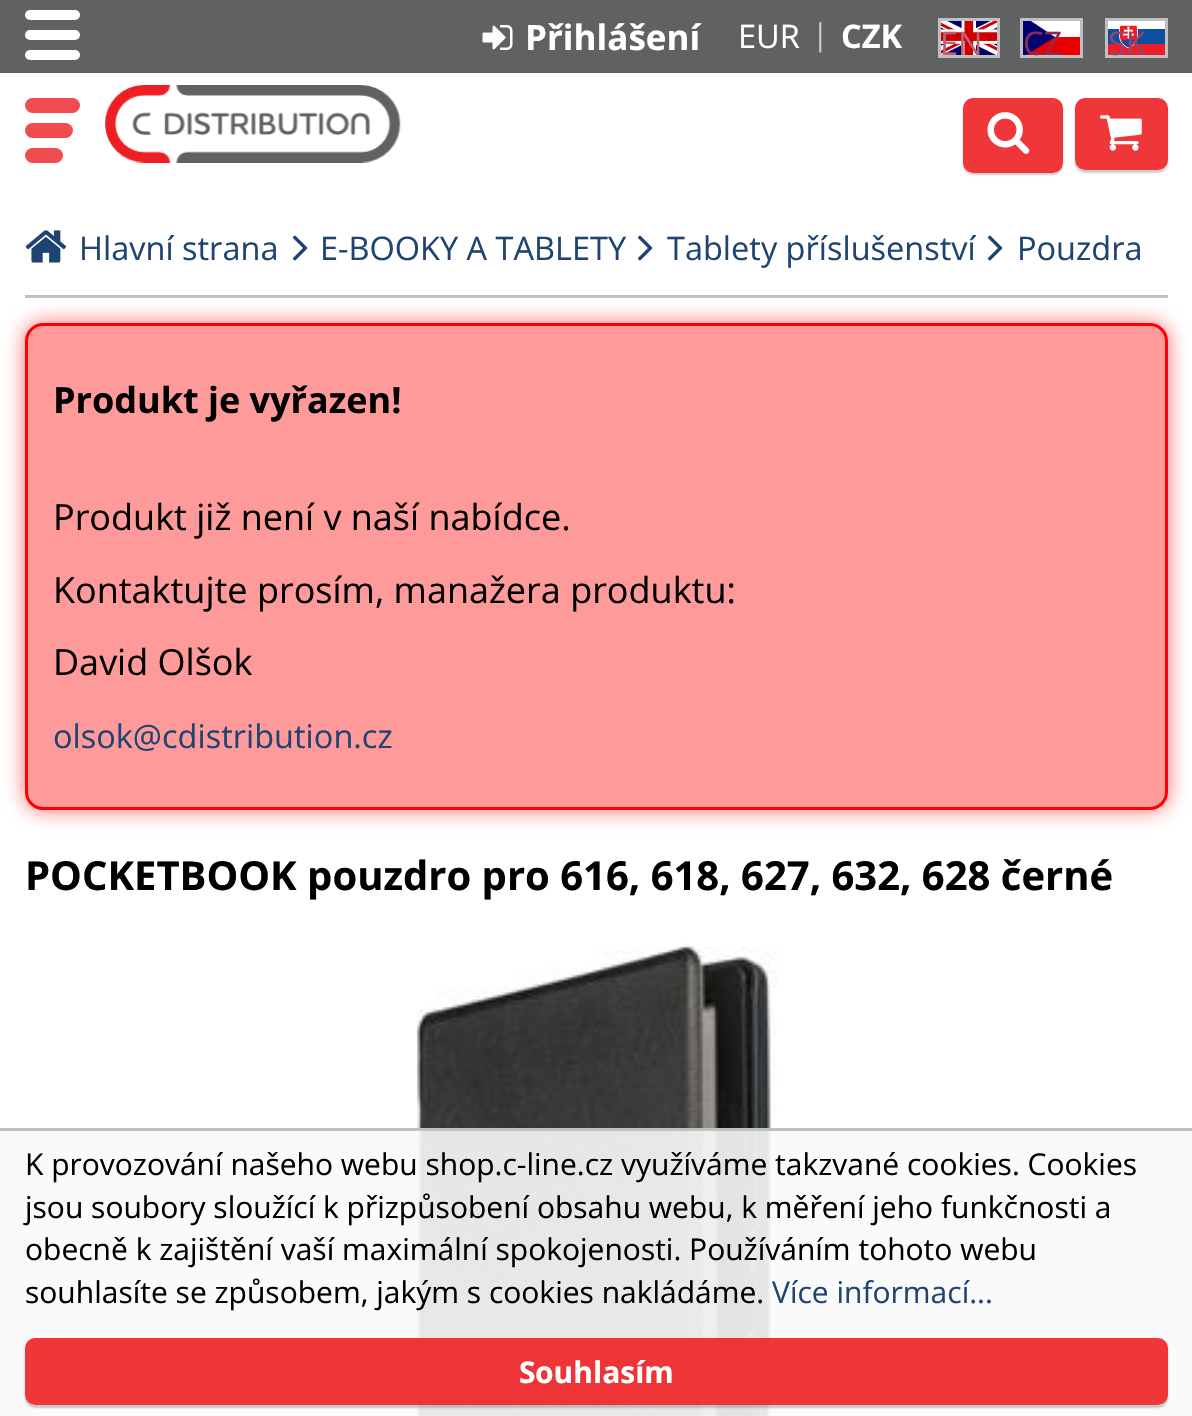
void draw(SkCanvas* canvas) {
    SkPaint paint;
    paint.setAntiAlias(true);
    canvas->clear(0xFFFFFFFF);
    paint.setColor(0xFF606161);
    canvas->drawRect(SkRect::MakeXYWH(0, 0, 1192, 73), paint);
    paint.setColor(0xFFFFFFFF);
    canvas->drawRoundRect(SkRect::MakeXYWH(25, 10, 55, 10), 5, 5, paint);
    canvas->drawRoundRect(SkRect::MakeXYWH(25, 30, 55, 10), 5, 5, paint);
    canvas->drawRoundRect(SkRect::MakeXYWH(25, 50, 55, 10), 5, 5, paint);
    canvas->drawImageRect(SkImages::DeferredFromEncodedData(SkData::MakeFromFileName("img1.png")), SkRect::MakeXYWH(482, 25, 31, 25), SkSamplingOptions());
    SkFont font1(fontMgr->matchFamilyStyle("Open Sans", SkFontStyle::Bold()), 35);
    font1.setSubpixel(true);
    canvas->drawString("Přihlášení", 525, 50, font1, paint);
    SkFont font2(fontMgr->matchFamilyStyle("Open Sans", SkFontStyle::Normal()), 32.5f);
    font2.setSubpixel(true);
    canvas->drawString("EUR", 738, 48, font2, paint);
    SkFont font3(fontMgr->matchFamilyStyle("Open Sans", SkFontStyle::Normal()), 30);
    font3.setSubpixel(true);
    paint.setColor(0xFFCACACA);
    canvas->drawString("|", 812, 45, font3, paint);
    SkFont font4(fontMgr->matchFamilyStyle("Open Sans", SkFontStyle::Bold()), 32.5f);
    font4.setSubpixel(true);
    paint.setColor(0xFFFFFFFF);
    canvas->drawString("CZK", 841, 48, font4, paint);
    canvas->drawImageRect(SkImages::DeferredFromEncodedData(SkData::MakeFromFileName("img2.png")), SkRect::MakeXYWH(941, 21, 56, 34), SkSamplingOptions());
    paint.setStyle(SkPaint::kStroke_Style);
    paint.setStrokeWidth(3);
    paint.setColor(0xFFC0C0C0);
    canvas->drawRect(SkRect::MakeXYWH(939.5f, 19.5f, 59, 37), paint);
    paint.setStyle(SkPaint::kFill_Style);
    paint.setColor(0xFFBB6274);
    canvas->drawString("EN", 940, 55, font2, paint);
    paint.setColor(0xFFE80000);
    canvas->drawRect(SkRect::MakeXYWH(1026, 37, 54, 18), paint);
    paint.setColor(0xFFFFFFFF);
    canvas->drawRect(SkRect::MakeXYWH(1031, 21, 49, 16), paint);
    canvas->save();
    canvas->clipRect(SkRect::MakeXYWH(1023, 18, 57, 40));
    paint.setColor(0xFF00006F);
    canvas->drawPath(SkPathBuilder().moveTo(1022, 15).lineTo(1055, 37).lineTo(1022, 58).close().detach(), paint);
    canvas->restore();
    paint.setStyle(SkPaint::kStroke_Style);
    paint.setColor(0xFFC0C0C0);
    canvas->drawRect(SkRect::MakeXYWH(1021.5f, 19.5f, 60, 37), paint);
    paint.setStyle(SkPaint::kFill_Style);
    paint.setColor(0xFF8D2956);
    canvas->drawString("CZ", 1023, 55, font2, paint);
    canvas->drawImageRect(SkImages::DeferredFromEncodedData(SkData::MakeFromFileName("img3.png")), SkRect::MakeXYWH(1108, 21, 57, 34), SkSamplingOptions());
    paint.setStyle(SkPaint::kStroke_Style);
    paint.setColor(0xFFC0C0C0);
    canvas->drawRect(SkRect::MakeXYWH(1106.5f, 19.5f, 60, 37), paint);
    paint.setStyle(SkPaint::kFill_Style);
    paint.setColor(0xFF94446A);
    canvas->drawString("SK", 1108, 55, font2, paint);
    paint.setColor(0xFFF14D50);
    canvas->drawRoundRect(SkRect::MakeXYWH(25, 98, 55, 15), 7.5f, 7.5f, paint);
    canvas->drawRoundRect(SkRect::MakeXYWH(25, 123, 48, 15), 7.5f, 7.5f, paint);
    canvas->drawRoundRect(SkRect::MakeXYWH(25, 148, 38, 15), 7.5f, 7.5f, paint);
    canvas->drawImageRect(SkImages::DeferredFromEncodedData(SkData::MakeFromFileName("img4.png")), SkRect::MakeXYWH(105, 85, 296, 78), SkSamplingOptions());
    canvas->save();
    canvas->clipPath(SkPathBuilder(SkPathFillType::kEvenOdd).moveTo(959, 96).lineTo(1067, 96).lineTo(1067, 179).lineTo(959, 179).close().moveTo(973, 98).lineTo(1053, 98).cubicTo(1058.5f, 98, 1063, 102.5f, 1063, 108).lineTo(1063, 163).cubicTo(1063, 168.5f, 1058.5f, 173, 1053, 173).lineTo(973, 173).cubicTo(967.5f, 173, 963, 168.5f, 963, 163).lineTo(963, 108).cubicTo(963, 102.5f, 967.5f, 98, 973, 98).close().detach(), true);
    paint.setColor(0x33000000);
    paint.setMaskFilter(SkMaskFilter::MakeBlur(kNormal_SkBlurStyle, 1));
    canvas->drawRoundRect(SkRect::MakeXYWH(963, 100, 100, 75), 10, 10, paint);
    paint.setMaskFilter(nullptr);
    canvas->restore();
    paint.setColor(0xE6ED2024);
    canvas->drawRoundRect(SkRect::MakeXYWH(963, 98, 100, 75), 10, 10, paint);
    canvas->drawImageRect(SkImages::DeferredFromEncodedData(SkData::MakeFromFileName("img5.png")), SkRect::MakeXYWH(987, 112, 43, 42), SkSamplingOptions());
    canvas->save();
    canvas->clipPath(SkPathBuilder(SkPathFillType::kEvenOdd).moveTo(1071, 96).lineTo(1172, 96).lineTo(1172, 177).lineTo(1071, 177).close().moveTo(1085, 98).lineTo(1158, 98).cubicTo(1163.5f, 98, 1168, 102.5f, 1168, 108).lineTo(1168, 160).cubicTo(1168, 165.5f, 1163.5f, 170, 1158, 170).lineTo(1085, 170).cubicTo(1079.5f, 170, 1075, 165.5f, 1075, 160).lineTo(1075, 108).cubicTo(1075, 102.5f, 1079.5f, 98, 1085, 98).close().detach(), true);
    paint.setColor(0x33000000);
    paint.setMaskFilter(SkMaskFilter::MakeBlur(kNormal_SkBlurStyle, 1));
    canvas->drawRoundRect(SkRect::MakeXYWH(1075, 100, 93, 73), 10, 10, paint);
    paint.setMaskFilter(nullptr);
    canvas->restore();
    paint.setColor(0xE6ED2024);
    canvas->drawRoundRect(SkRect::MakeXYWH(1075, 98, 93, 72), 10, 10, paint);
    canvas->drawImageRect(SkImages::DeferredFromEncodedData(SkData::MakeFromFileName("img6.png")), SkRect::MakeXYWH(1100, 115, 42, 36), SkSamplingOptions());
    paint.setColor(0xFFC0C0C0);
    canvas->drawRect(SkRect::MakeXYWH(25, 295, 1143, 3), paint);
    canvas->drawImageRect(SkImages::DeferredFromEncodedData(SkData::MakeFromFileName("img7.png")), SkRect::MakeXYWH(25, 230, 42, 33), SkSamplingOptions());
    paint.setColor(0xFF204471);
    canvas->drawString("Hlavní strana", 79, 260, font2, paint);
    canvas->drawImageRect(SkImages::DeferredFromEncodedData(SkData::MakeFromFileName("img8.png")), SkRect::MakeXYWH(292, 235, 16, 26), SkSamplingOptions());
    canvas->drawString("E-BOOKY A TABLETY", 320, 260, font2, paint);
    canvas->drawImageRect(SkImages::DeferredFromEncodedData(SkData::MakeFromFileName("img8.png")), SkRect::MakeXYWH(637, 235, 16, 26), SkSamplingOptions());
    canvas->drawString("Tablety příslušenství", 667, 260, font2, paint);
    canvas->drawImageRect(SkImages::DeferredFromEncodedData(SkData::MakeFromFileName("img8.png")), SkRect::MakeXYWH(987, 235, 16, 26), SkSamplingOptions());
    canvas->drawString("Pouzdra", 1017, 260, font2, paint);
    paint.setColor(0x99FF0000);
    paint.setMaskFilter(SkMaskFilter::MakeBlur(kNormal_SkBlurStyle, 10));
    canvas->drawRoundRect(SkRect::MakeXYWH(25, 323, 1143, 487), 18, 18, paint);
    paint.setMaskFilter(nullptr);
    paint.setColor(0xFFFF9A9A);
    canvas->drawRoundRect(SkRect::MakeXYWH(26.5f, 324.5f, 1140, 484), 16.5f, 16.5f, paint);
    paint.setStyle(SkPaint::kStroke_Style);
    paint.setColor(0xFFFF0000);
    canvas->drawRoundRect(SkRect::MakeXYWH(26.5f, 324.5f, 1140, 484), 16.5f, 16.5f, paint);
    SkFont font5(fontMgr->matchFamilyStyle("Open Sans", SkFontStyle::Bold()), 36);
    font5.setSubpixel(true);
    paint.setStyle(SkPaint::kFill_Style);
    paint.setColor(0xFF000000);
    canvas->drawString("Produkt je vyřazen!", 53, 413, font5, paint);
    SkFont font6(fontMgr->matchFamilyStyle("Open Sans", SkFontStyle::Normal()), 36);
    font6.setSubpixel(true);
    canvas->drawString("Produkt již není v naší nabídce.", 53, 530, font6, paint);
    canvas->drawString("Kontaktujte prosím, manažera produktu:", 53, 603, font6, paint);
    canvas->drawString("David Olšok", 53, 675, font6, paint);
    paint.setColor(0xFF204471);
    canvas->drawString("olsok@cdistribution.cz", 53, 748, font2, paint);
    SkFont font7(fontMgr->matchFamilyStyle("Open Sans", SkFontStyle::Bold()), 40);
    font7.setSubpixel(true);
    paint.setColor(0xFF000000);
    canvas->drawString("POCKETBOOK pouzdro pro 616, 618, 627, 632, 628 černé", 25, 890, font7, paint);
    canvas->drawImageRect(SkImages::DeferredFromEncodedData(SkData::MakeFromFileName("img9.png")), SkRect::MakeXYWH(416, 943, 362, 473), SkSamplingOptions());
    paint.setColor(0xE6FAFAFA);
    canvas->drawRect(SkRect::MakeXYWH(0, 1131, 1192, 285), paint);
    paint.setColor(0xFFC0C0C0);
    canvas->drawRect(SkRect::MakeXYWH(0, 1128, 1192, 3), paint);
    paint.setColor(0xFF000000);
    canvas->drawString("K provozování našeho webu shop.c-line.cz využíváme takzvané cookies. Cookies", 25, 1175, font3, paint);
    canvas->drawString("jsou soubory sloužící k přizpůsobení obsahu webu, k měření jeho funkčnosti a", 25, 1218, font3, paint);
    canvas->drawString("obecně k zajištění vaší maximální spokojenosti. Používáním tohoto webu", 25, 1260, font3, paint);
    canvas->drawString("souhlasíte se způsobem, jakým s cookies nakládáme.", 25, 1303, font3, paint);
    paint.setColor(0xFF204471);
    canvas->drawString("Více informací...", 772, 1303, font3, paint);
    canvas->save();
    canvas->clipPath(SkPathBuilder(SkPathFillType::kEvenOdd).moveTo(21, 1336).lineTo(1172, 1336).lineTo(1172, 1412).lineTo(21, 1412).close().moveTo(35, 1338).lineTo(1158, 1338).cubicTo(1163.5f, 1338, 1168, 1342.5f, 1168, 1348).lineTo(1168, 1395).cubicTo(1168, 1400.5f, 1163.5f, 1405, 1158, 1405).lineTo(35, 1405).cubicTo(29.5f, 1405, 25, 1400.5f, 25, 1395).lineTo(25, 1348).cubicTo(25, 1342.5f, 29.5f, 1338, 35, 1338).close().detach(), true);
    paint.setColor(0x33000000);
    paint.setMaskFilter(SkMaskFilter::MakeBlur(kNormal_SkBlurStyle, 1));
    canvas->drawRoundRect(SkRect::MakeXYWH(25, 1340, 1143, 68), 10, 10, paint);
    paint.setMaskFilter(nullptr);
    canvas->restore();
    paint.setColor(0xE6ED2024);
    canvas->drawRoundRect(SkRect::MakeXYWH(25, 1338, 1143, 67), 10, 10, paint);
    SkFont font8(fontMgr->matchFamilyStyle("Noto Sans", SkFontStyle::Bold()), 30);
    font8.setSubpixel(true);
    paint.setColor(0xFFFFFFFF);
    canvas->drawString("S", 519, 1383, font8, paint);
    SkFont font9(fontMgr->matchFamilyStyle("Open Sans", SkFontStyle::Bold()), 30);
    font9.setSubpixel(true);
    canvas->drawString("ouhlasím", 535, 1383, font9, paint);
}
